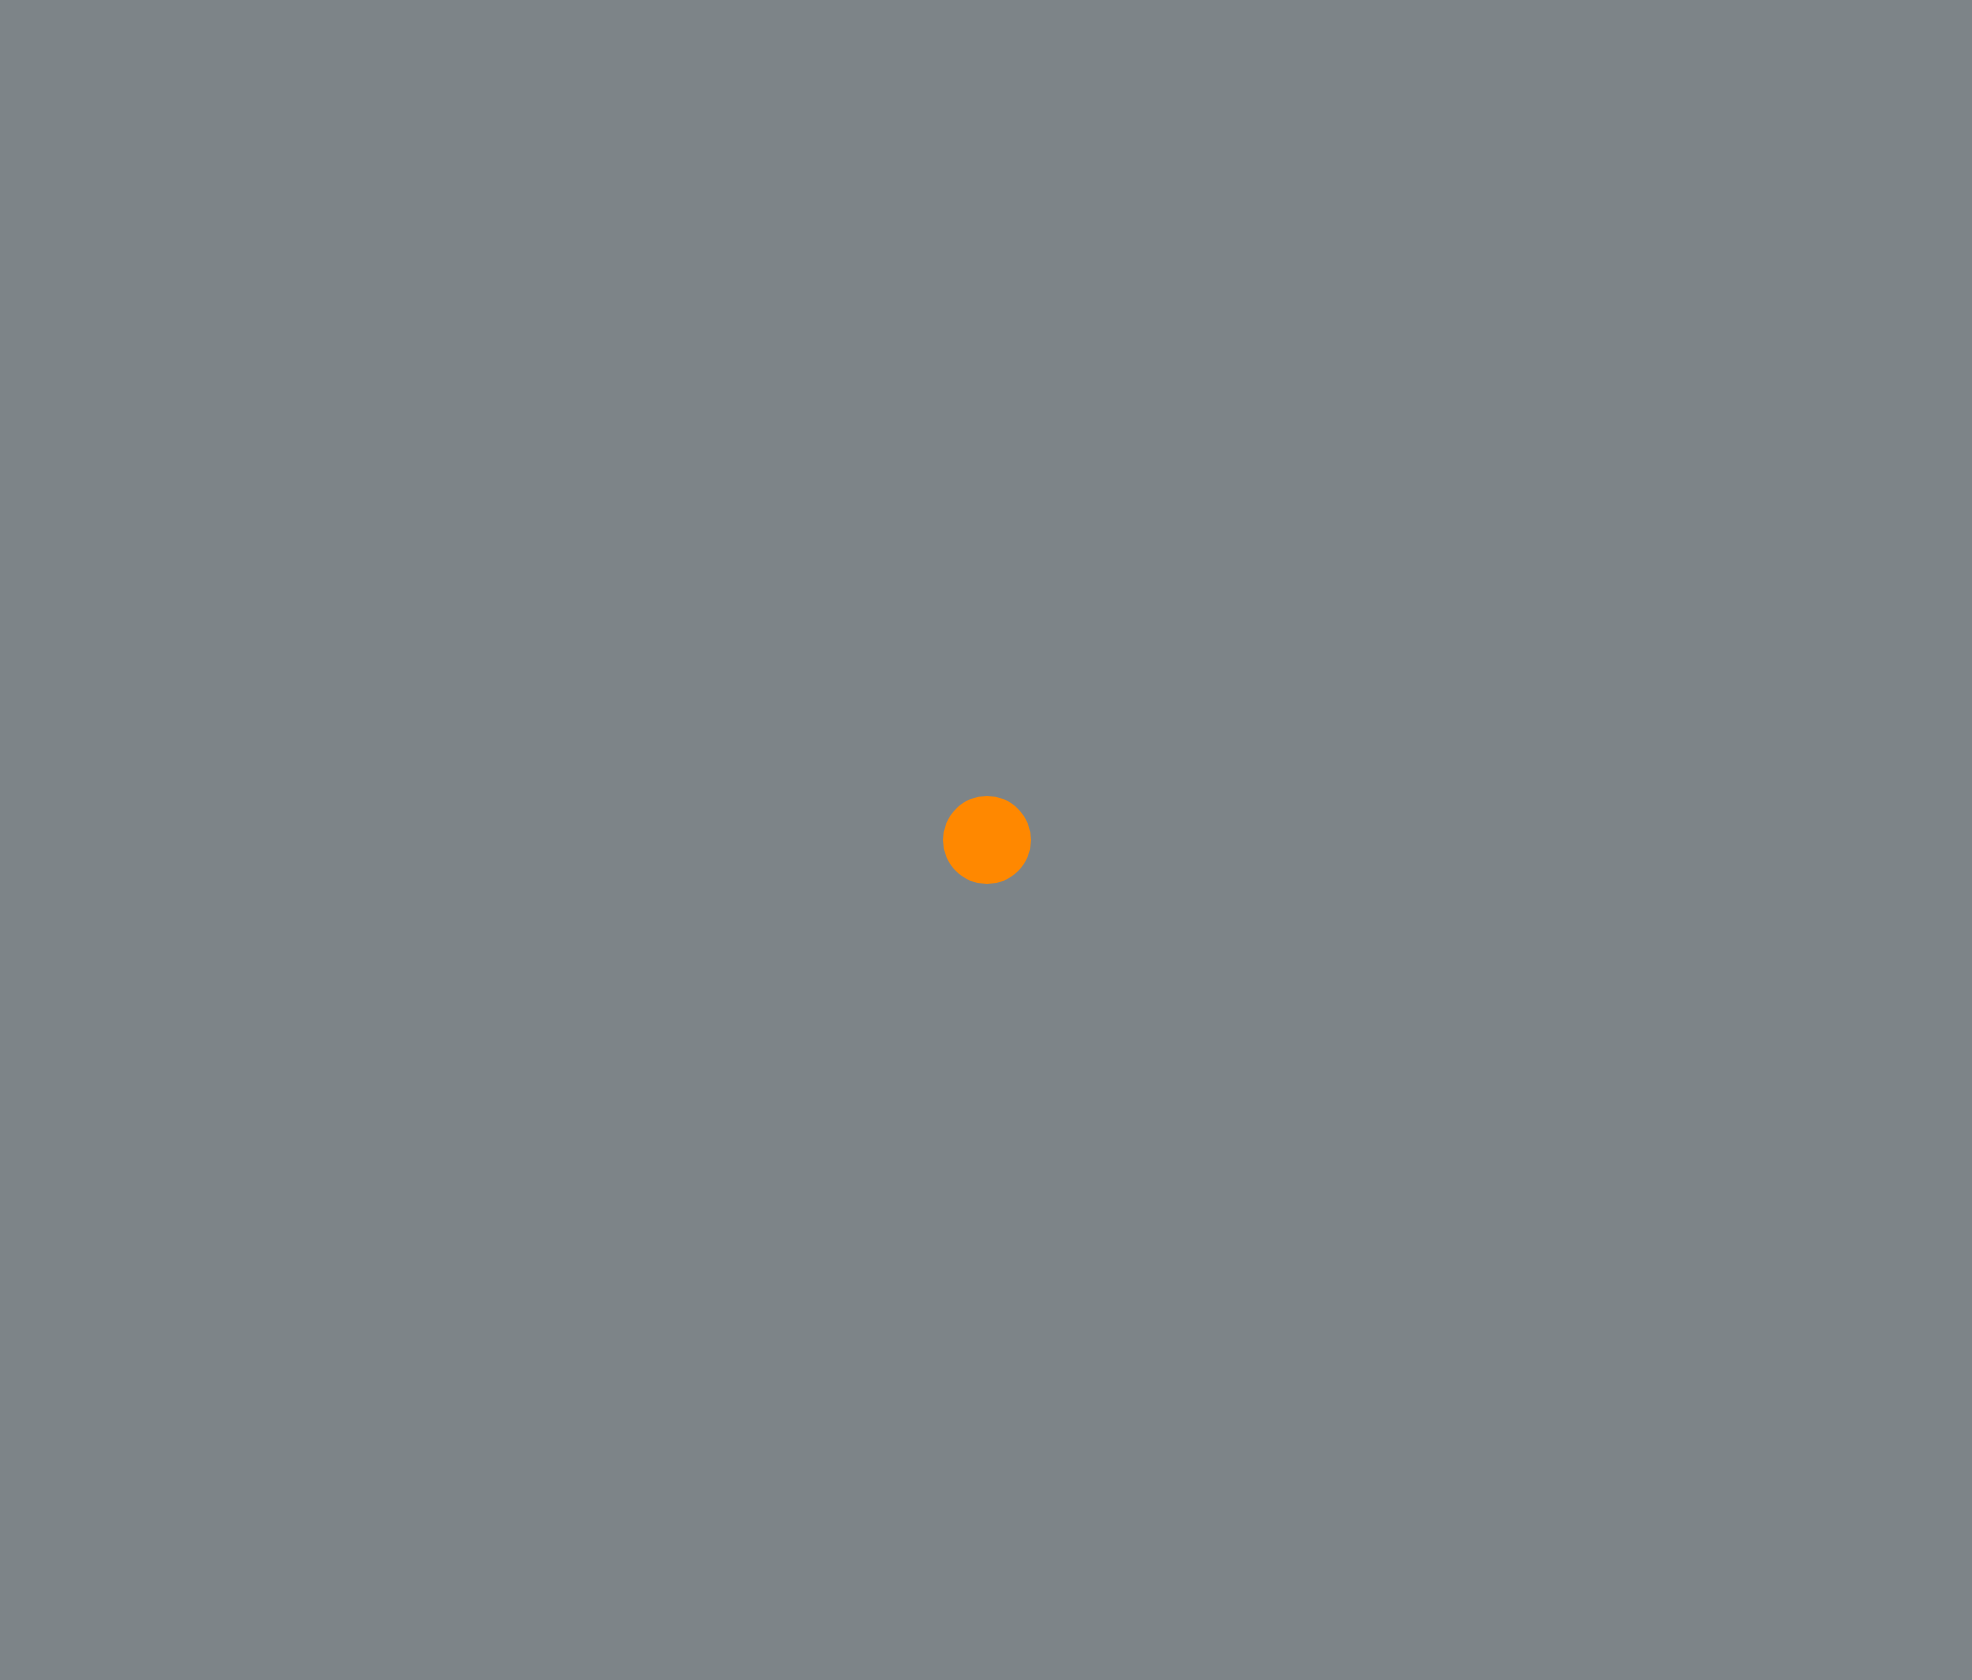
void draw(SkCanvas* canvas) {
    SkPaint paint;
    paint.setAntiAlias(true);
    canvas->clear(0xFF7D8488);
    paint.setColor(0xFFFF8800);
    canvas->drawCircle(987, 840, 44, paint);
}
